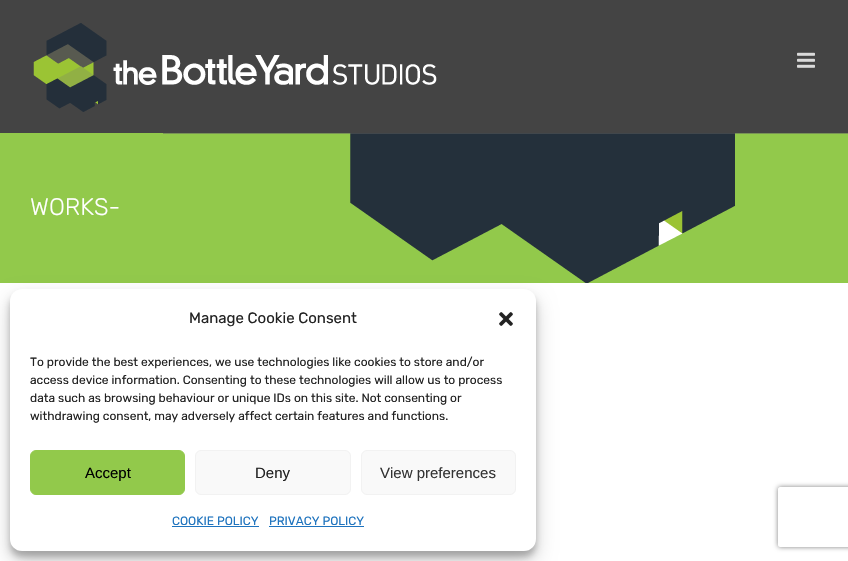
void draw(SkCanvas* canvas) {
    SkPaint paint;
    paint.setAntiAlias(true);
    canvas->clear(0xFFFFFFFF);
    paint.setColor(0xFF444444);
    canvas->drawRect(SkRect::MakeXYWH(0, 0, 848, 133), paint);
    canvas->drawImageRect(SkImages::DeferredFromEncodedData(SkData::MakeFromFileName("img1.png")), SkRect::MakeXYWH(33, 23, 404, 89), SkSamplingOptions());
    canvas->drawImageRect(SkImages::DeferredFromEncodedData(SkData::MakeFromFileName("img2.png")), SkRect::MakeXYWH(797, 52, 18, 16), SkSamplingOptions());
    paint.setColor(0xFF92C94B);
    canvas->drawRect(SkRect::MakeXYWH(0, 133, 848, 150), paint);
    canvas->drawImageRect(SkImages::DeferredFromEncodedData(SkData::MakeFromFileName("img3.png")), SkRect::MakeXYWH(163, 133, 685, 150), SkSamplingOptions());
    SkFont font1(fontMgr->matchFamilyStyle("Rubik", SkFontStyle(300, SkFontStyle::kNormal_Width, SkFontStyle::kUpright_Slant)), 24);
    font1.setSubpixel(true);
    paint.setColor(0xFFFFFFFF);
    canvas->drawString("WORKS-", 30, 215, font1, paint);
    paint.setColor(0x3B000000);
    paint.setMaskFilter(SkMaskFilter::MakeBlur(kNormal_SkBlurStyle, 3));
    canvas->drawRoundRect(SkRect::MakeXYWH(10, 295, 526, 262), 12, 12, paint);
    paint.setMaskFilter(nullptr);
    paint.setColor(0x30000000);
    paint.setMaskFilter(SkMaskFilter::MakeBlur(kNormal_SkBlurStyle, 10));
    canvas->drawRoundRect(SkRect::MakeXYWH(10, 299, 526, 262), 12, 12, paint);
    paint.setMaskFilter(nullptr);
    paint.setColor(0xFFFFFFFF);
    canvas->drawRoundRect(SkRect::MakeXYWH(10, 289, 526, 262), 12, 12, paint);
    SkFont font2(fontMgr->matchFamilyStyle("Rubik", SkFontStyle::Normal()), 15);
    font2.setSubpixel(true);
    paint.setColor(0xFF222222);
    canvas->drawString("Manage Cookie Consent", 189, 323, font2, paint);
    canvas->drawImageRect(SkImages::DeferredFromEncodedData(SkData::MakeFromFileName("img4.png")), SkRect::MakeXYWH(499, 312, 14, 14), SkSamplingOptions());
    SkFont font3(fontMgr->matchFamilyStyle("Rubik", SkFontStyle::Normal()), 12);
    font3.setSubpixel(true);
    canvas->drawString("To provide the best experiences, we use technologies like cookies to store and/or", 30, 366, font3, paint);
    canvas->drawString("access device information. Consenting to these technologies will allow us to process", 30, 384, font3, paint);
    canvas->drawString("data such as browsing behaviour or unique IDs on this site. Not consenting or", 30, 402, font3, paint);
    canvas->drawString("withdrawing consent, may adversely affect certain features and functions.", 30, 420, font3, paint);
    paint.setColor(0xFF92C94B);
    canvas->drawRoundRect(SkRect::MakeXYWH(30.5f, 450.5f, 154, 44), 5.5f, 5.5f, paint);
    paint.setStyle(SkPaint::kStroke_Style);
    paint.setStrokeWidth(1);
    canvas->drawRoundRect(SkRect::MakeXYWH(30.5f, 450.5f, 154, 44), 5.5f, 5.5f, paint);
    SkFont font4(fontMgr->matchFamilyStyle("Liberation Sans", SkFontStyle::Normal()), 15);
    font4.setSubpixel(true);
    paint.setStyle(SkPaint::kFill_Style);
    paint.setColor(0xFF000000);
    canvas->drawString("Accept", 85, 478, font4, paint);
    paint.setColor(0xFFF9F9F9);
    canvas->drawRoundRect(SkRect::MakeXYWH(195.5f, 450.5f, 155, 44), 5.5f, 5.5f, paint);
    paint.setStyle(SkPaint::kStroke_Style);
    paint.setColor(0xFFF2F2F2);
    canvas->drawRoundRect(SkRect::MakeXYWH(195.5f, 450.5f, 155, 44), 5.5f, 5.5f, paint);
    paint.setStyle(SkPaint::kFill_Style);
    paint.setColor(0xFF222222);
    canvas->drawString("Deny", 255, 478, font4, paint);
    paint.setColor(0xFFF9F9F9);
    canvas->drawRoundRect(SkRect::MakeXYWH(361.5f, 450.5f, 154, 44), 5.5f, 5.5f, paint);
    paint.setStyle(SkPaint::kStroke_Style);
    paint.setColor(0xFFF2F2F2);
    canvas->drawRoundRect(SkRect::MakeXYWH(361.5f, 450.5f, 154, 44), 5.5f, 5.5f, paint);
    paint.setStyle(SkPaint::kFill_Style);
    paint.setColor(0xFF333333);
    canvas->drawString("View preferences", 380, 478, font4, paint);
    paint.setColor(0xFF1E73BE);
    canvas->drawString("COOKIE POLICY", 172, 525, font3, paint);
    canvas->drawRect(SkRect::MakeXYWH(172, 526, 87, 1), paint);
    canvas->drawString("PRIVACY POLICY", 269, 525, font3, paint);
    canvas->drawRect(SkRect::MakeXYWH(269, 526, 95, 1), paint);
    canvas->save();
    canvas->clipPath(SkPathBuilder(SkPathFillType::kEvenOdd).moveTo(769, 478).lineTo(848, 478).lineTo(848, 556).lineTo(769, 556).close().moveTo(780, 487).lineTo(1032, 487).cubicTo(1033, 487, 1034, 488, 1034, 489).lineTo(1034, 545).cubicTo(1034, 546, 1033, 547, 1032, 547).lineTo(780, 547).cubicTo(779, 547, 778, 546, 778, 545).lineTo(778, 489).cubicTo(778, 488, 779, 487, 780, 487).close().detach(), true);
    paint.setColor(0xFF808080);
    paint.setMaskFilter(SkMaskFilter::MakeBlur(kNormal_SkBlurStyle, 2.5f));
    canvas->drawRoundRect(SkRect::MakeXYWH(778, 487, 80, 60), 2, 2, paint);
    paint.setMaskFilter(nullptr);
    canvas->restore();
}
